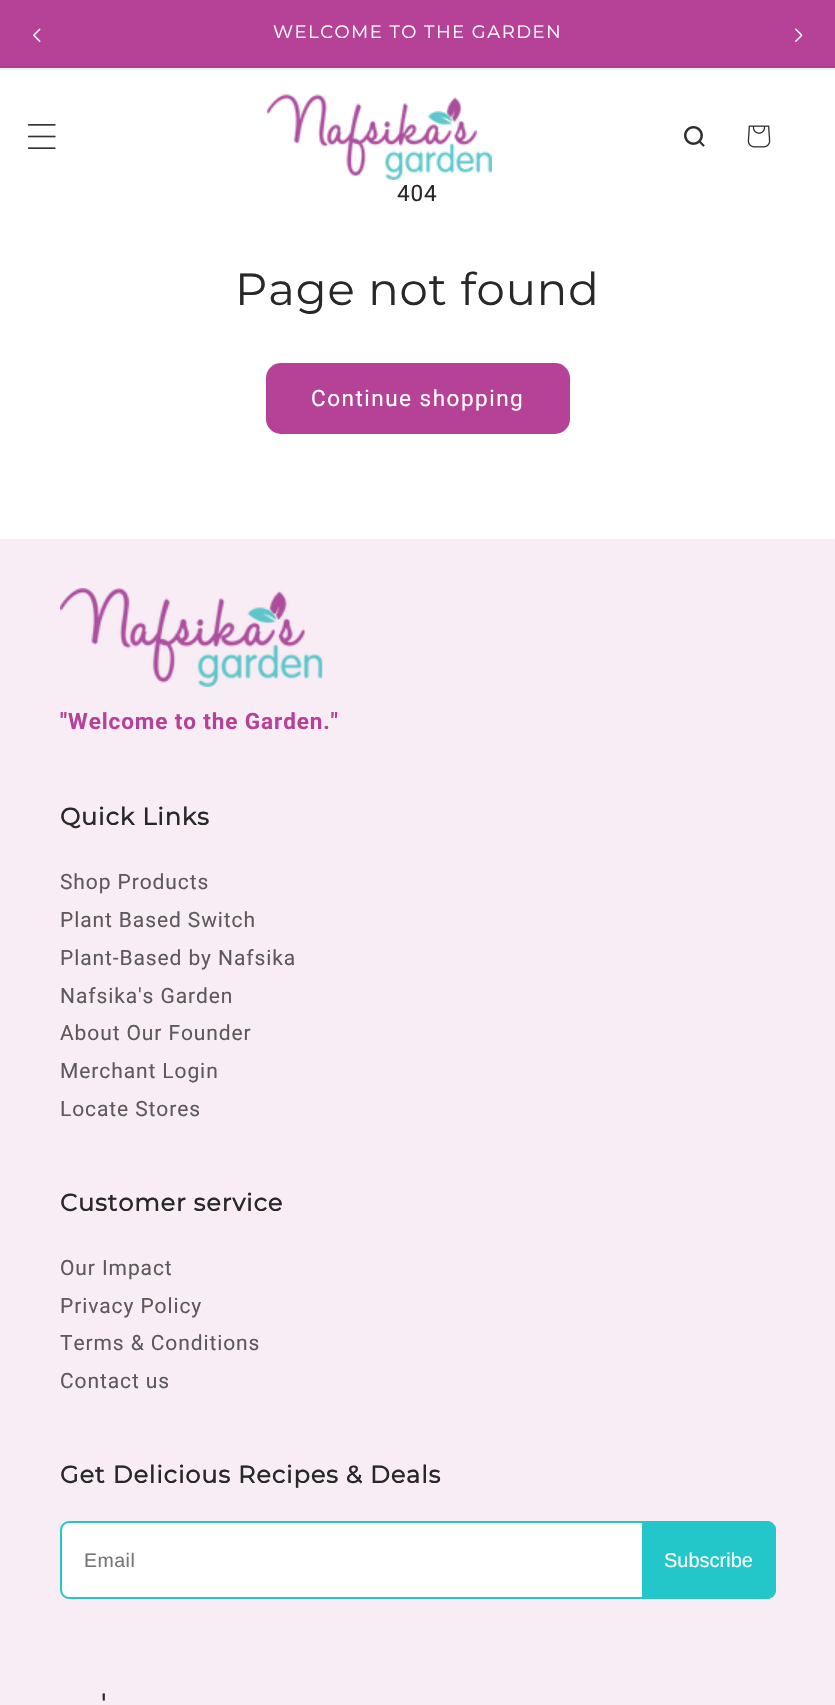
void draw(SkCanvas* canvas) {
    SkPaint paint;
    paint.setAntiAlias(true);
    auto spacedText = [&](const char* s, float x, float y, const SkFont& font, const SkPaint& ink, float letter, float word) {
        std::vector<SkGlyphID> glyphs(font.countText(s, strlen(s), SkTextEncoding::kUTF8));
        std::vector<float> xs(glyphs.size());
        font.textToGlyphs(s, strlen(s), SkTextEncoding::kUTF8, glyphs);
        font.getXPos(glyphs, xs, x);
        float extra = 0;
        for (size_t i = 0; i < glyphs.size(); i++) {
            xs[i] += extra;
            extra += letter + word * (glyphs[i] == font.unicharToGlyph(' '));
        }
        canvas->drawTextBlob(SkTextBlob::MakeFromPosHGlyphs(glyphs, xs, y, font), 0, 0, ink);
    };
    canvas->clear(0xFFFFFFFF);
    paint.setColor(0xFFB64297);
    canvas->drawRect(SkRect::MakeXYWH(0, 0, 835, 66), paint);
    paint.setColor(0xFFAB408E);
    canvas->drawRect(SkRect::MakeXYWH(0, 66, 835, 2), paint);
    canvas->drawImageRect(SkImages::DeferredFromEncodedData(SkData::MakeFromFileName("img1.png")), SkRect::MakeXYWH(33, 28, 8, 14), SkSamplingOptions());
    SkFont font1(fontMgr->matchFamilyStyle("Montserrat", SkFontStyle::Normal()), 18);
    font1.setSubpixel(true);
    paint.setColor(0xFFFFFFFF);
    spacedText("WELCOME TO THE GARDEN", 273, 38, font1, paint, 1.5f, 0);
    canvas->drawImageRect(SkImages::DeferredFromEncodedData(SkData::MakeFromFileName("img2.png")), SkRect::MakeXYWH(795, 28, 8, 14), SkSamplingOptions());
    paint.setColor(0xFFEFEFEF);
    canvas->drawRect(SkRect::MakeXYWH(0, 68, 835, 2), paint);
    canvas->drawImageRect(SkImages::DeferredFromEncodedData(SkData::MakeFromFileName("img3.png")), SkRect::MakeXYWH(27, 124, 29, 25), SkSamplingOptions());
    canvas->drawImageRect(SkImages::DeferredFromEncodedData(SkData::MakeFromFileName("img4.png")), SkRect::MakeXYWH(266, 94, 226, 86), SkSamplingOptions());
    canvas->drawImageRect(SkImages::DeferredFromEncodedData(SkData::MakeFromFileName("img5.png")), SkRect::MakeXYWH(684, 126, 21, 21), SkSamplingOptions());
    canvas->drawImageRect(SkImages::DeferredFromEncodedData(SkData::MakeFromFileName("img6.png")), SkRect::MakeXYWH(747, 125, 24, 23), SkSamplingOptions());
    SkFont font2(fontMgr->matchFamilyStyle("Roboto", SkFontStyle::Normal()), 22.5f);
    font2.setSubpixel(true);
    paint.setColor(0xFF292828);
    spacedText("404", 397, 201, font2, paint, 0.9f, 0);
    SkFont font3(fontMgr->matchFamilyStyle("Montserrat", SkFontStyle::Normal()), 45);
    font3.setSubpixel(true);
    spacedText("Page not found", 235, 305, font3, paint, 0.9f, 0);
    paint.setColor(0xFFB64297);
    canvas->drawRoundRect(SkRect::MakeXYWH(266, 363, 304, 71), 15, 15, paint);
    paint.setColor(0xFFFFFFFF);
    spacedText("Continue shopping", 311, 406, font2, paint, 1.5f, 0);
    paint.setColor(0xFFF8EDF5);
    canvas->drawRect(SkRect::MakeXYWH(0, 539, 835, 1166), paint);
    canvas->drawImageRect(SkImages::DeferredFromEncodedData(SkData::MakeFromFileName("img7.png")), SkRect::MakeXYWH(60, 588, 263, 99), SkSamplingOptions());
    SkFont font4(fontMgr->matchFamilyStyle("Roboto", SkFontStyle::Bold()), 22.5f);
    font4.setSubpixel(true);
    paint.setColor(0xFFB64297);
    spacedText("\"Welcome to the Garden.\"", 60, 729, font4, paint, 0.9f, 0);
    SkFont font5(fontMgr->matchFamilyStyle("Montserrat", SkFontStyle::Bold()), 24);
    font5.setSubpixel(true);
    paint.setColor(0xFF292828);
    spacedText("Quick Links", 60, 825, font5, paint, 0.9f, 0);
    SkFont font6(fontMgr->matchFamilyStyle("Roboto", SkFontStyle::Normal()), 21);
    font6.setSubpixel(true);
    paint.setColor(0xFF5D595B);
    spacedText("Shop Products", 60, 889, font6, paint, 0.9f, 0);
    spacedText("Plant Based Switch", 60, 927, font6, paint, 0.9f, 0);
    spacedText("Plant-Based by Nafsika", 60, 965, font6, paint, 0.9f, 0);
    spacedText("Nafsika's Garden", 60, 1003, font6, paint, 0.9f, 0);
    spacedText("About Our Founder", 60, 1040, font6, paint, 0.9f, 0);
    spacedText("Merchant Login", 60, 1078, font6, paint, 0.9f, 0);
    spacedText("Locate Stores", 60, 1116, font6, paint, 0.9f, 0);
    paint.setColor(0xFF292828);
    spacedText("Customer service", 60, 1211, font5, paint, 0.9f, 0);
    paint.setColor(0xFF5D595B);
    spacedText("Our Impact", 60, 1275, font6, paint, 0.9f, 0);
    spacedText("Privacy Policy", 60, 1313, font6, paint, 0.9f, 0);
    spacedText("Terms & Conditions", 60, 1350, font6, paint, 0.9f, 0);
    spacedText("Contact us", 60, 1388, font6, paint, 0.9f, 0);
    paint.setColor(0xFF292828);
    spacedText("Get Delicious Recipes & Deals", 60, 1483, font5, paint, 0.9f, 0);
    paint.setColor(0xFFFFFFFF);
    canvas->drawRoundRect(SkRect::MakeXYWH(61, 1522, 714, 76), 8, 8, paint);
    paint.setStyle(SkPaint::kStroke_Style);
    paint.setStrokeWidth(2);
    paint.setColor(0xFF24C7C9);
    canvas->drawRoundRect(SkRect::MakeXYWH(61, 1522, 714, 76), 8, 8, paint);
    SkFont font7(fontMgr->matchFamilyStyle("Liberation Sans", SkFontStyle::Normal()), 19.5f);
    font7.setSubpixel(true);
    paint.setStyle(SkPaint::kFill_Style);
    paint.setColor(0xFF757575);
    spacedText("Email", 84, 1567, font7, paint, 0.5f, 0);
    paint.setColor(0xFF24C7C9);
    canvas->drawPath(SkPathBuilder().moveTo(642, 1521).lineTo(767, 1521).cubicTo(772, 1521, 776, 1525, 776, 1530).lineTo(776, 1590).cubicTo(776, 1595, 772, 1599, 767, 1599).lineTo(642, 1599).close().detach(), paint);
    SkFont font8(fontMgr->matchFamilyStyle("Liberation Sans", SkFontStyle::Normal()), 20);
    font8.setSubpixel(true);
    paint.setColor(0xFFFFFFFF);
    canvas->drawString("Subscribe", 664, 1567, font8, paint);
    paint.setColor(0xFF292828);
    spacedText("'", 101, 1711, font5, paint, 0.9f, 0);
}
